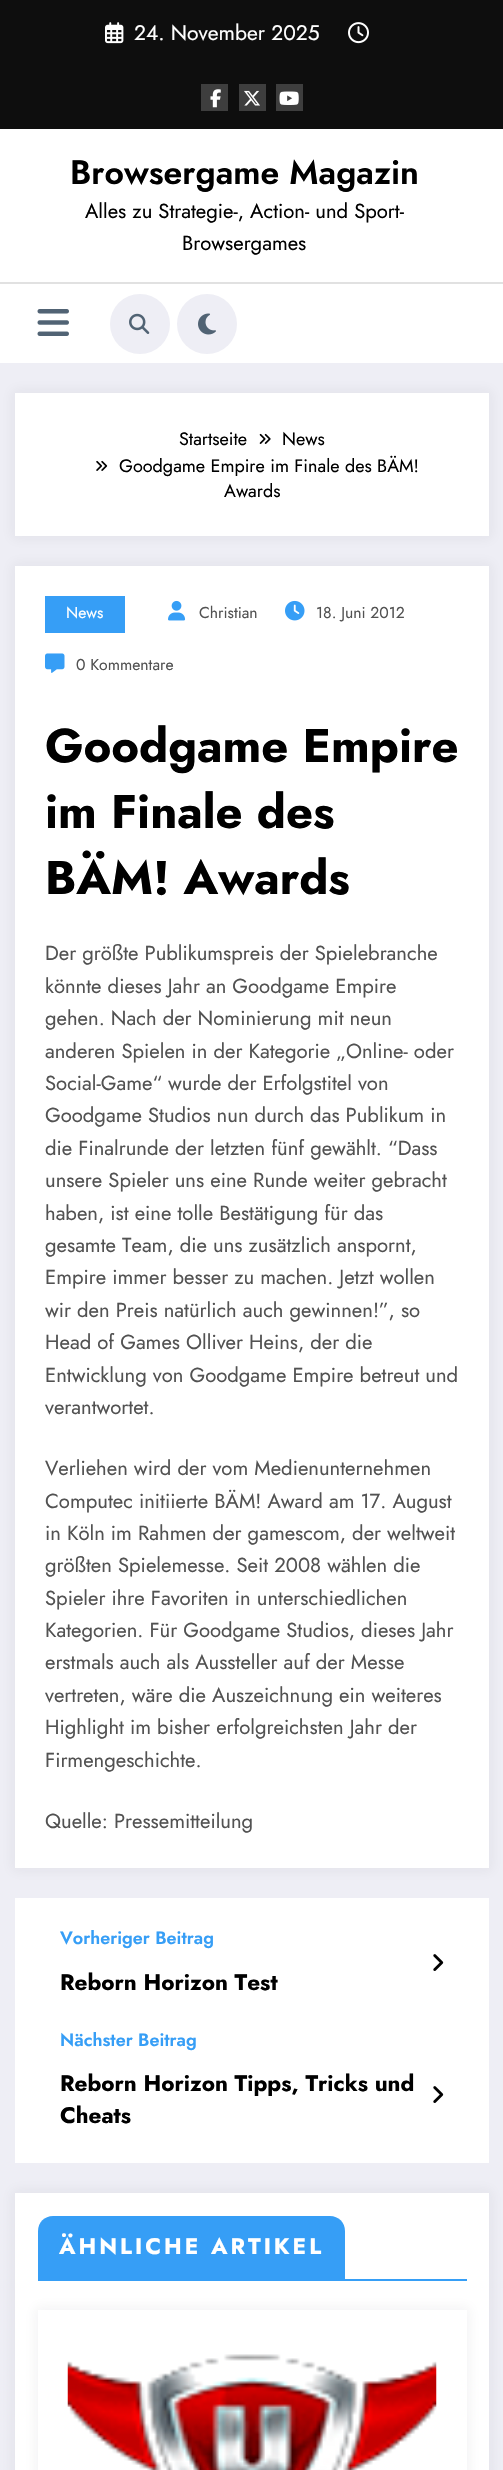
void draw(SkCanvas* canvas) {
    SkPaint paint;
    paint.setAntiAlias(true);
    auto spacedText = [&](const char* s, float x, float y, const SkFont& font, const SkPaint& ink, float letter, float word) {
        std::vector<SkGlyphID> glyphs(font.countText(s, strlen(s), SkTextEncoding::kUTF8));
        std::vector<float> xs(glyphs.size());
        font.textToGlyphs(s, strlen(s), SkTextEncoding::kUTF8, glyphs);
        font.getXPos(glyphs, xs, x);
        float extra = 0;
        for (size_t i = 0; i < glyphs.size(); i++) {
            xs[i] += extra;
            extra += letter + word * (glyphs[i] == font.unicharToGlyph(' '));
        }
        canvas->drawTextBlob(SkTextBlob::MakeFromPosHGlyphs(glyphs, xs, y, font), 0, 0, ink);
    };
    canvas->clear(0xFFEEEEF5);
    paint.setColor(0xFF0E0E0E);
    canvas->drawRect(SkRect::MakeXYWH(0, 0, 503, 129), paint);
    canvas->drawImageRect(SkImages::DeferredFromEncodedData(SkData::MakeFromFileName("img1.png")), SkRect::MakeXYWH(105, 22, 19, 22), SkSamplingOptions());
    SkFont font1(fontMgr->matchFamilyStyle("Jost", SkFontStyle::Normal()), 21);
    font1.setSubpixel(true);
    paint.setColor(0xFFFFFFFF);
    canvas->drawString("24. November 2025", 134, 40, font1, paint);
    canvas->drawImageRect(SkImages::DeferredFromEncodedData(SkData::MakeFromFileName("img2.png")), SkRect::MakeXYWH(348, 22, 21, 22), SkSamplingOptions());
    paint.setColor(0xFF3E3E3E);
    canvas->drawRect(SkRect::MakeXYWH(201, 84, 27, 27), paint);
    canvas->drawImageRect(SkImages::DeferredFromEncodedData(SkData::MakeFromFileName("img3.png")), SkRect::MakeXYWH(210, 89, 11, 19), SkSamplingOptions());
    canvas->drawRect(SkRect::MakeXYWH(239, 84, 27, 27), paint);
    canvas->drawImageRect(SkImages::DeferredFromEncodedData(SkData::MakeFromFileName("img4.png")), SkRect::MakeXYWH(244, 90, 16, 16), SkSamplingOptions());
    canvas->drawRect(SkRect::MakeXYWH(276, 84, 27, 27), paint);
    canvas->drawImageRect(SkImages::DeferredFromEncodedData(SkData::MakeFromFileName("img5.png")), SkRect::MakeXYWH(279, 91, 20, 14), SkSamplingOptions());
    paint.setColor(0xFFFFFFFF);
    canvas->drawRect(SkRect::MakeXYWH(0, 129, 503, 234), paint);
    SkFont font2(fontMgr->matchFamilyStyle("Jost", SkFontStyle(600, SkFontStyle::kNormal_Width, SkFontStyle::kUpright_Slant)), 33.75f);
    font2.setSubpixel(true);
    paint.setColor(0xFF000000);
    canvas->drawString("Browsergame Magazin", 70, 184, font2, paint);
    SkFont font3(fontMgr->matchFamilyStyle("Jost", SkFontStyle::Normal()), 20.25f);
    font3.setSubpixel(true);
    canvas->drawString("Alles zu Strategie-, Action- und Sport-", 85, 218, font3, paint);
    canvas->drawString("Browsergames", 182, 250, font3, paint);
    paint.setColor(0xFFE1E1E1);
    canvas->drawRect(SkRect::MakeXYWH(0, 282, 503, 2), paint);
    canvas->drawImageRect(SkImages::DeferredFromEncodedData(SkData::MakeFromFileName("img6.png")), SkRect::MakeXYWH(37, 309, 32, 27), SkSamplingOptions());
    paint.setColor(0xFFEEEEF5);
    canvas->drawCircle(140, 324, 30, paint);
    canvas->drawImageRect(SkImages::DeferredFromEncodedData(SkData::MakeFromFileName("img7.png")), SkRect::MakeXYWH(129, 313, 21, 21), SkSamplingOptions());
    canvas->drawCircle(207, 324, 30, paint);
    canvas->drawImageRect(SkImages::DeferredFromEncodedData(SkData::MakeFromFileName("img8.png")), SkRect::MakeXYWH(198, 313, 18, 22), SkSamplingOptions());
    paint.setColor(0x0D171723);
    paint.setMaskFilter(SkMaskFilter::MakeBlur(kNormal_SkBlurStyle, 6));
    canvas->drawRect(SkRect::MakeXYWH(12, 390, 480, 149), paint);
    paint.setMaskFilter(nullptr);
    paint.setColor(0xFFFFFFFF);
    canvas->drawRect(SkRect::MakeXYWH(15, 393, 474, 143), paint);
    SkFont font4(fontMgr->matchFamilyStyle("Jost", SkFontStyle::Normal()), 18);
    font4.setSubpixel(true);
    paint.setColor(0xFF000000);
    canvas->drawString("Startseite", 179, 445, font4, paint);
    canvas->drawImageRect(SkImages::DeferredFromEncodedData(SkData::MakeFromFileName("img9.png")), SkRect::MakeXYWH(259, 433, 12, 11), SkSamplingOptions());
    canvas->drawString("News", 282, 445, font4, paint);
    canvas->drawImageRect(SkImages::DeferredFromEncodedData(SkData::MakeFromFileName("img10.png")), SkRect::MakeXYWH(96, 460, 12, 11), SkSamplingOptions());
    canvas->drawString("Goodgame Empire im Finale des BÄM!", 119, 472, font4, paint);
    canvas->drawString("Awards", 224, 497, font4, paint);
    paint.setColor(0x0D171723);
    paint.setMaskFilter(SkMaskFilter::MakeBlur(kNormal_SkBlurStyle, 6));
    canvas->drawRect(SkRect::MakeXYWH(12, 563, 480, 1308), paint);
    paint.setMaskFilter(nullptr);
    paint.setColor(0xFFFFFFFF);
    canvas->drawRect(SkRect::MakeXYWH(15, 566, 474, 1302), paint);
    paint.setColor(0xFF369EF6);
    canvas->drawRect(SkRect::MakeXYWH(45, 596, 80, 37), paint);
    SkFont font5(fontMgr->matchFamilyStyle("Jost", SkFontStyle::Normal()), 15.75f);
    font5.setSubpixel(true);
    paint.setColor(0xFFFFFFFF);
    canvas->drawString("News", 66, 618, font5, paint);
    canvas->drawImageRect(SkImages::DeferredFromEncodedData(SkData::MakeFromFileName("img11.png")), SkRect::MakeXYWH(168, 600, 18, 21), SkSamplingOptions());
    paint.setColor(0xFF525252);
    canvas->drawString("Christian", 199, 618, font5, paint);
    canvas->drawImageRect(SkImages::DeferredFromEncodedData(SkData::MakeFromFileName("img12.png")), SkRect::MakeXYWH(285, 600, 20, 21), SkSamplingOptions());
    canvas->drawString("18. Juni 2012", 316, 618, font5, paint);
    canvas->drawImageRect(SkImages::DeferredFromEncodedData(SkData::MakeFromFileName("img13.png")), SkRect::MakeXYWH(45, 653, 20, 20), SkSamplingOptions());
    canvas->drawString("0 Kommentare", 76, 670, font5, paint);
    SkFont font6(fontMgr->matchFamilyStyle("Jost", SkFontStyle::Bold()), 47.25f);
    font6.setSubpixel(true);
    paint.setColor(0xFF000000);
    canvas->drawString("Goodgame Empire", 45, 762, font6, paint);
    canvas->drawString("im Finale des", 45, 828, font6, paint);
    canvas->drawString("BÄM! Awards", 45, 894, font6, paint);
    paint.setColor(0xFF525252);
    canvas->drawString("Der größte Publikumspreis der Spielebranche", 45, 960, font3, paint);
    canvas->drawString("könnte dieses Jahr an Goodgame Empire", 45, 993, font3, paint);
    canvas->drawString("gehen. Nach der Nominierung mit neun", 45, 1025, font3, paint);
    canvas->drawString("anderen Spielen in der Kategorie „Online- oder", 45, 1058, font3, paint);
    canvas->drawString("Social-Game“ wurde der Erfolgstitel von", 45, 1090, font3, paint);
    canvas->drawString("Goodgame Studios nun durch das Publikum in", 45, 1122, font3, paint);
    canvas->drawString("die Finalrunde der letzten fünf gewählt. “Dass", 45, 1155, font3, paint);
    canvas->drawString("unsere Spieler uns eine Runde weiter gebracht", 45, 1187, font3, paint);
    canvas->drawString("haben, ist eine tolle Bestätigung für das", 45, 1220, font3, paint);
    canvas->drawString("gesamte Team, die uns zusätzlich anspornt,", 45, 1252, font3, paint);
    canvas->drawString("Empire immer besser zu machen. Jetzt wollen", 45, 1284, font3, paint);
    canvas->drawString("wir den Preis natürlich auch gewinnen!”, so", 45, 1317, font3, paint);
    canvas->drawString("Head of Games Olliver Heins, der die", 45, 1349, font3, paint);
    canvas->drawString("Entwicklung von Goodgame Empire betreut und", 45, 1382, font3, paint);
    canvas->drawString("verantwortet.", 45, 1414, font3, paint);
    canvas->drawString("Verliehen wird der vom Medienunternehmen", 45, 1475, font3, paint);
    canvas->drawString("Computec initiierte BÄM! Award am 17. August", 45, 1508, font3, paint);
    canvas->drawString("in Köln im Rahmen der gamescom, der weltweit", 45, 1540, font3, paint);
    canvas->drawString("größten Spielemesse. Seit 2008 wählen die", 45, 1572, font3, paint);
    canvas->drawString("Spieler ihre Favoriten in unterschiedlichen", 45, 1605, font3, paint);
    canvas->drawString("Kategorien. Für Goodgame Studios, dieses Jahr", 45, 1637, font3, paint);
    canvas->drawString("erstmals auch als Aussteller auf der Messe", 45, 1669, font3, paint);
    canvas->drawString("vertreten, wäre die Auszeichnung ein weiteres", 45, 1702, font3, paint);
    canvas->drawString("Highlight im bisher erfolgreichsten Jahr der", 45, 1734, font3, paint);
    canvas->drawString("Firmengeschichte.", 45, 1767, font3, paint);
    canvas->drawString("Quelle: Pressemitteilung", 45, 1828, font3, paint);
    paint.setColor(0xFFFFFFFF);
    canvas->drawRect(SkRect::MakeXYWH(15, 1898, 474, 265), paint);
    SkFont font7(fontMgr->matchFamilyStyle("Jost", SkFontStyle(600, SkFontStyle::kNormal_Width, SkFontStyle::kUpright_Slant)), 18);
    font7.setSubpixel(true);
    paint.setColor(0xFF369EF6);
    canvas->drawString("Vorheriger Beitrag", 60, 1944, font7, paint);
    SkFont font8(fontMgr->matchFamilyStyle("Jost", SkFontStyle::Bold()), 22.5f);
    font8.setSubpixel(true);
    paint.setColor(0xFF000000);
    canvas->drawString("Reborn Horizon Test", 60, 1990, font8, paint);
    canvas->drawImageRect(SkImages::DeferredFromEncodedData(SkData::MakeFromFileName("img14.png")), SkRect::MakeXYWH(433, 1954, 11, 17), SkSamplingOptions());
    paint.setColor(0xFF369EF6);
    canvas->drawString("Nächster Beitrag", 60, 2046, font7, paint);
    paint.setColor(0xFF000000);
    canvas->drawString("Reborn Horizon Tipps, Tricks und", 60, 2091, font8, paint);
    canvas->drawString("Cheats", 60, 2123, font8, paint);
    canvas->drawImageRect(SkImages::DeferredFromEncodedData(SkData::MakeFromFileName("img14.png")), SkRect::MakeXYWH(433, 2086, 11, 17), SkSamplingOptions());
    paint.setColor(0x0D171723);
    paint.setMaskFilter(SkMaskFilter::MakeBlur(kNormal_SkBlurStyle, 6));
    canvas->drawRect(SkRect::MakeXYWH(12, 2190, 480, 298), paint);
    paint.setMaskFilter(nullptr);
    paint.setColor(0xFFFFFFFF);
    canvas->drawRect(SkRect::MakeXYWH(15, 2193, 474, 277), paint);
    paint.setColor(0xFF369EF6);
    canvas->drawRect(SkRect::MakeXYWH(38, 2279, 429, 2), paint);
    canvas->drawPath(SkPathBuilder().moveTo(53, 2216).lineTo(330, 2216).cubicTo(338.5f, 2216, 345, 2222.5f, 345, 2231).lineTo(345, 2279).lineTo(38, 2279).lineTo(38, 2231).cubicTo(38, 2222.5f, 44.5f, 2216, 53, 2216).close().detach(), paint);
    paint.setColor(0xFFFFFFFF);
    spacedText("ÄHNLICHE ARTIKEL", 59, 2254, font8, paint, 3, 0);
    paint.setColor(0x0D171723);
    paint.setMaskFilter(SkMaskFilter::MakeBlur(kNormal_SkBlurStyle, 6));
    canvas->drawRect(SkRect::MakeXYWH(35, 2307, 435, 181), paint);
    paint.setMaskFilter(nullptr);
    paint.setColor(0xFFFFFFFF);
    canvas->drawRect(SkRect::MakeXYWH(38, 2310, 429, 160), paint);
    canvas->drawImageRect(SkImages::DeferredFromEncodedData(SkData::MakeFromFileName("img15.png")), SkRect::MakeXYWH(67, 2354, 370, 116), SkSamplingOptions());
}
